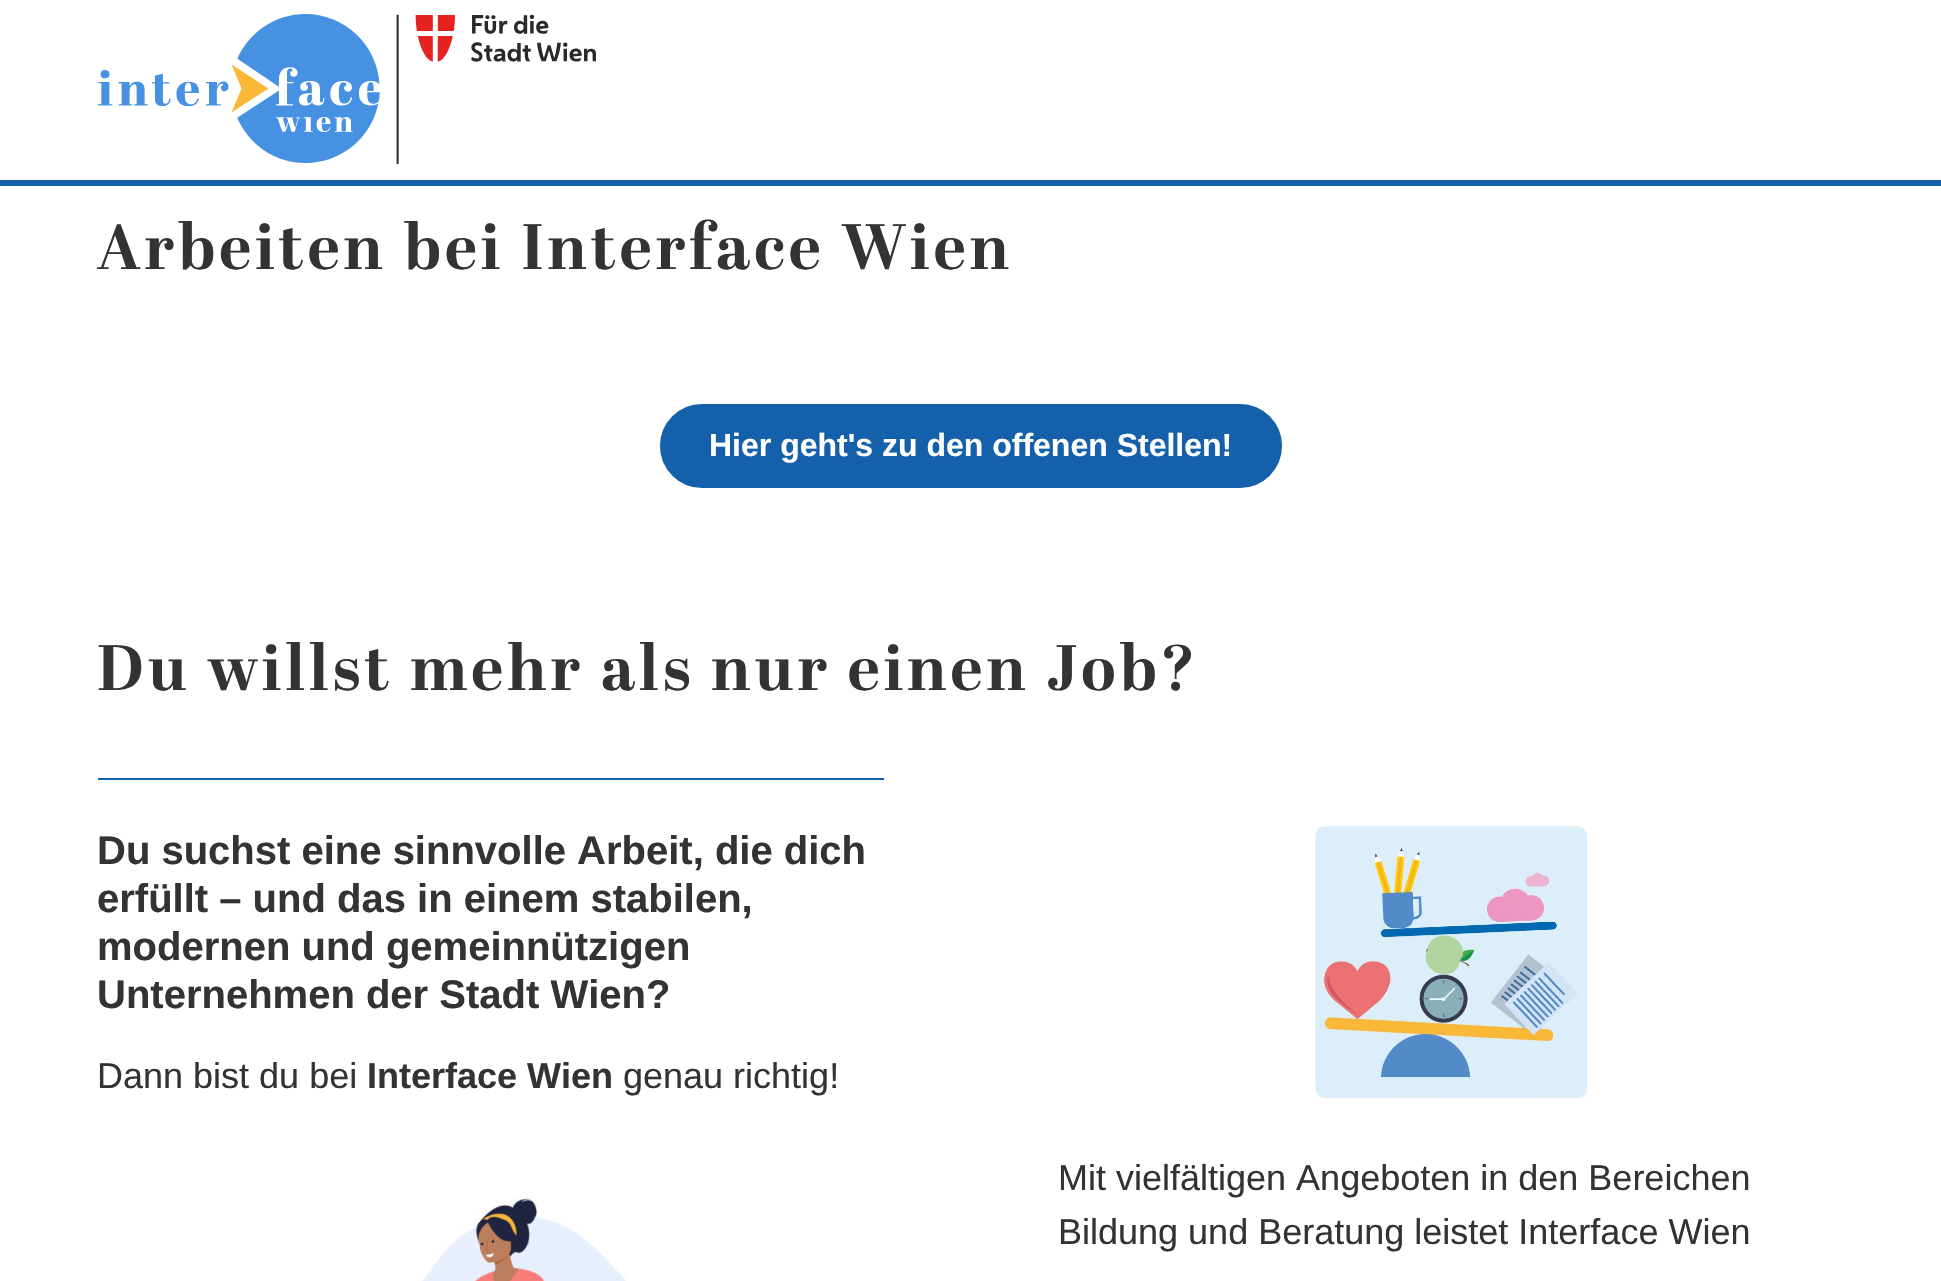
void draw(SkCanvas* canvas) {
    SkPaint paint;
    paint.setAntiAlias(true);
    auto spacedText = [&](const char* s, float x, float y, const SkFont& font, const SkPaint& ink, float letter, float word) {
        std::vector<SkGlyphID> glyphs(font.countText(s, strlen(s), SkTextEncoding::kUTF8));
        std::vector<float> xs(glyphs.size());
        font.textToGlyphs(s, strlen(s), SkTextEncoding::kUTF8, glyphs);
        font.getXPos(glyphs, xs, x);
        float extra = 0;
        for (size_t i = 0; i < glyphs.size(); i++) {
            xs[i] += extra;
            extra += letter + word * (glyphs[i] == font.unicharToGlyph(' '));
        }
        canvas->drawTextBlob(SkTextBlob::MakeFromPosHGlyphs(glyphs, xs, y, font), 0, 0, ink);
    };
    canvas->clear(0xFFFFFFFF);
    paint.setColor(0xFF1460AA);
    canvas->drawRect(SkRect::MakeXYWH(0, 180, 1941, 6), paint);
    canvas->drawImageRect(SkImages::DeferredFromEncodedData(SkData::MakeFromFileName("img1.png")), SkRect::MakeXYWH(98, 14, 498, 150), SkSamplingOptions());
    SkFont font1(fontMgr->matchFamilyStyle("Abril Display", SkFontStyle::Bold()), 64);
    font1.setSubpixel(true);
    paint.setColor(0xFF333333);
    spacedText("Arbeiten bei Interface Wien", 97, 269, font1, paint, 4, 0);
    paint.setColor(0xFF1460AA);
    canvas->drawRoundRect(SkRect::MakeXYWH(661, 405, 620, 82), 41, 41, paint);
    paint.setStyle(SkPaint::kStroke_Style);
    paint.setStrokeWidth(2);
    canvas->drawRoundRect(SkRect::MakeXYWH(661, 405, 620, 82), 41, 41, paint);
    SkFont font2(fontMgr->matchFamilyStyle("Liberation Sans", SkFontStyle::Bold()), 32);
    font2.setSubpixel(true);
    paint.setStyle(SkPaint::kFill_Style);
    paint.setColor(0xFFFFFFFF);
    canvas->drawString("Hier geht's zu den offenen Stellen!", 709, 456, font2, paint);
    paint.setColor(0xFF333333);
    spacedText("Du willst mehr als nur einen Job?", 97, 690, font1, paint, 4, 0);
    paint.setColor(0xFF1460AA);
    canvas->drawRect(SkRect::MakeXYWH(98, 778, 786, 2), paint);
    SkFont font3(fontMgr->matchFamilyStyle("Liberation Sans", SkFontStyle::Bold()), 40);
    font3.setSubpixel(true);
    paint.setColor(0xFF333333);
    canvas->drawString("Du suchst eine sinnvolle Arbeit, die dich", 97, 864, font3, paint);
    canvas->drawString("erfüllt – und das in einem stabilen,", 97, 912, font3, paint);
    canvas->drawString("modernen und gemeinnützigen", 97, 960, font3, paint);
    canvas->drawString("Unternehmen der Stadt Wien?", 97, 1008, font3, paint);
    SkFont font4(fontMgr->matchFamilyStyle("Liberation Sans", SkFontStyle::Normal()), 36);
    font4.setSubpixel(true);
    canvas->drawString("Dann bist du bei", 97, 1088, font4, paint);
    SkFont font5(fontMgr->matchFamilyStyle("Liberation Sans", SkFontStyle::Bold()), 36);
    font5.setSubpixel(true);
    canvas->drawString("Interface Wien", 367, 1088, font5, paint);
    canvas->drawString("genau richtig!", 623, 1088, font4, paint);
    canvas->drawImageRect(SkImages::DeferredFromEncodedData(SkData::MakeFromFileName("img2.png")), SkRect::MakeXYWH(422, 1198, 205, 83), SkSamplingOptions());
    canvas->drawImageRect(SkImages::DeferredFromEncodedData(SkData::MakeFromFileName("img3.png")), SkRect::MakeXYWH(1315, 826, 275, 274), SkSamplingOptions());
    canvas->drawString("Mit vielfältigen Angeboten in den Bereichen", 1058, 1190, font4, paint);
    canvas->drawString("Bildung und Beratung leistet Interface Wien", 1058, 1244, font4, paint);
}
